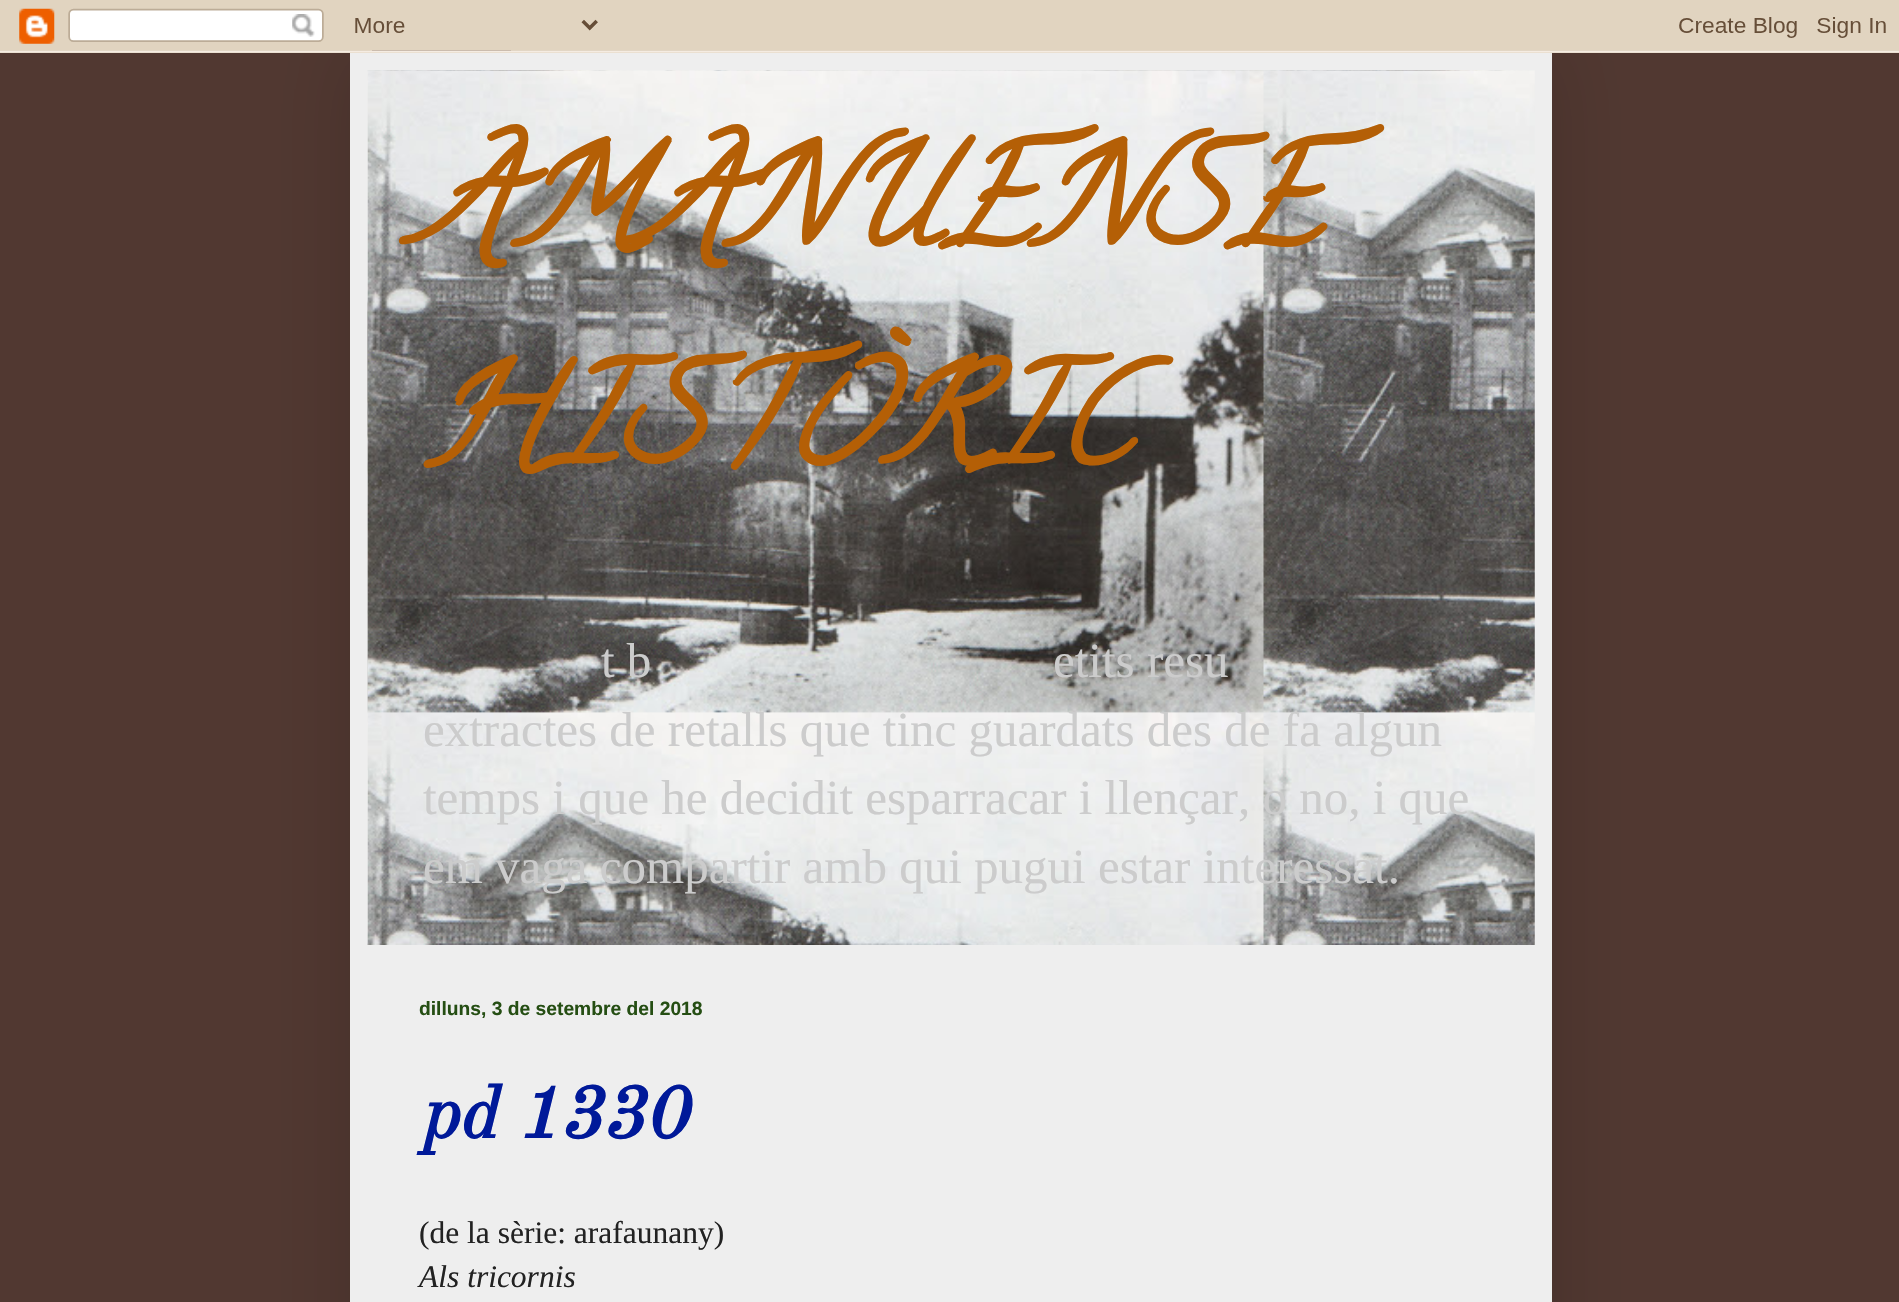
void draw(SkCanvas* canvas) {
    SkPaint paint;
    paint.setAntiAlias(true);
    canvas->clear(0xFF513831);
    paint.setColor(0x26000000);
    paint.setMaskFilter(SkMaskFilter::MakeBlur(kNormal_SkBlurStyle, 35));
    canvas->drawRect(SkRect::MakeXYWH(350, 53, 1202, 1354), paint);
    paint.setMaskFilter(nullptr);
    canvas->drawImageRect(SkImages::DeferredFromEncodedData(SkData::MakeFromFileName("img1.png")), SkRect::MakeXYWH(0, 0, 1899, 53), SkSamplingOptions());
    paint.setColor(0xFFEEEEEE);
    canvas->drawRect(SkRect::MakeXYWH(350, 53, 1202, 1249), paint);
    canvas->drawImageRect(SkImages::DeferredFromEncodedData(SkData::MakeFromFileName("img2.png")), SkRect::MakeXYWH(367, 770, 1, 37), SkSamplingOptions());
    canvas->drawImageRect(SkImages::DeferredFromEncodedData(SkData::MakeFromFileName("img3.png")), SkRect::MakeXYWH(367, 70, 1168, 875), SkSamplingOptions());
    SkFont font1(fontMgr->matchFamilyStyle("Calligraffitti", SkFontStyle::BoldItalic()), 140);
    font1.setSubpixel(true);
    paint.setColor(0xFFB45F06);
    canvas->drawString("AMANUENSE", 419, 243, font1, paint);
    canvas->drawString("HISTÒRIC", 419, 462, font1, paint);
    SkFont font2(fontMgr->matchFamilyStyle("Liberation Serif", SkFontStyle::Normal()), 49);
    font2.setSubpixel(true);
    paint.setColor(0xFFCCCCCC);
    canvas->drawString("t b", 601, 677, font2, paint);
    canvas->drawString("etits resu", 1053, 677, font2, paint);
    canvas->drawString("extractes de retalls que tinc guardats des de fa algun", 423, 746, font2, paint);
    canvas->drawString("temps i que he decidit esparracar i llençar, o no, i que", 423, 814, font2, paint);
    canvas->drawString("em vaga compartir amb qui pugui estar interessat.", 423, 883, font2, paint);
    SkFont font3(fontMgr->matchFamilyStyle("Liberation Sans", SkFontStyle::Bold()), 19.25f);
    font3.setSubpixel(true);
    paint.setColor(0xFF254E13);
    canvas->drawString("dilluns, 3 de setembre del 2018", 419, 1015, font3, paint);
    SkFont font4(fontMgr->matchFamilyStyle("Old Standard TT", SkFontStyle::BoldItalic()), 73.5f);
    font4.setSubpixel(true);
    paint.setColor(0xFF001999);
    canvas->drawString("pd 1330", 419, 1138, font4, paint);
    SkFont font5(fontMgr->matchFamilyStyle("Liberation Serif", SkFontStyle::Normal()), 31.5f);
    font5.setSubpixel(true);
    paint.setColor(0xFF222222);
    canvas->drawString("(de la sèrie: arafaunany)", 419, 1243, font5, paint);
    SkFont font6(fontMgr->matchFamilyStyle("Liberation Serif", SkFontStyle::Italic()), 31.5f);
    font6.setSubpixel(true);
    canvas->drawString("Als tricornis", 419, 1287, font6, paint);
}
